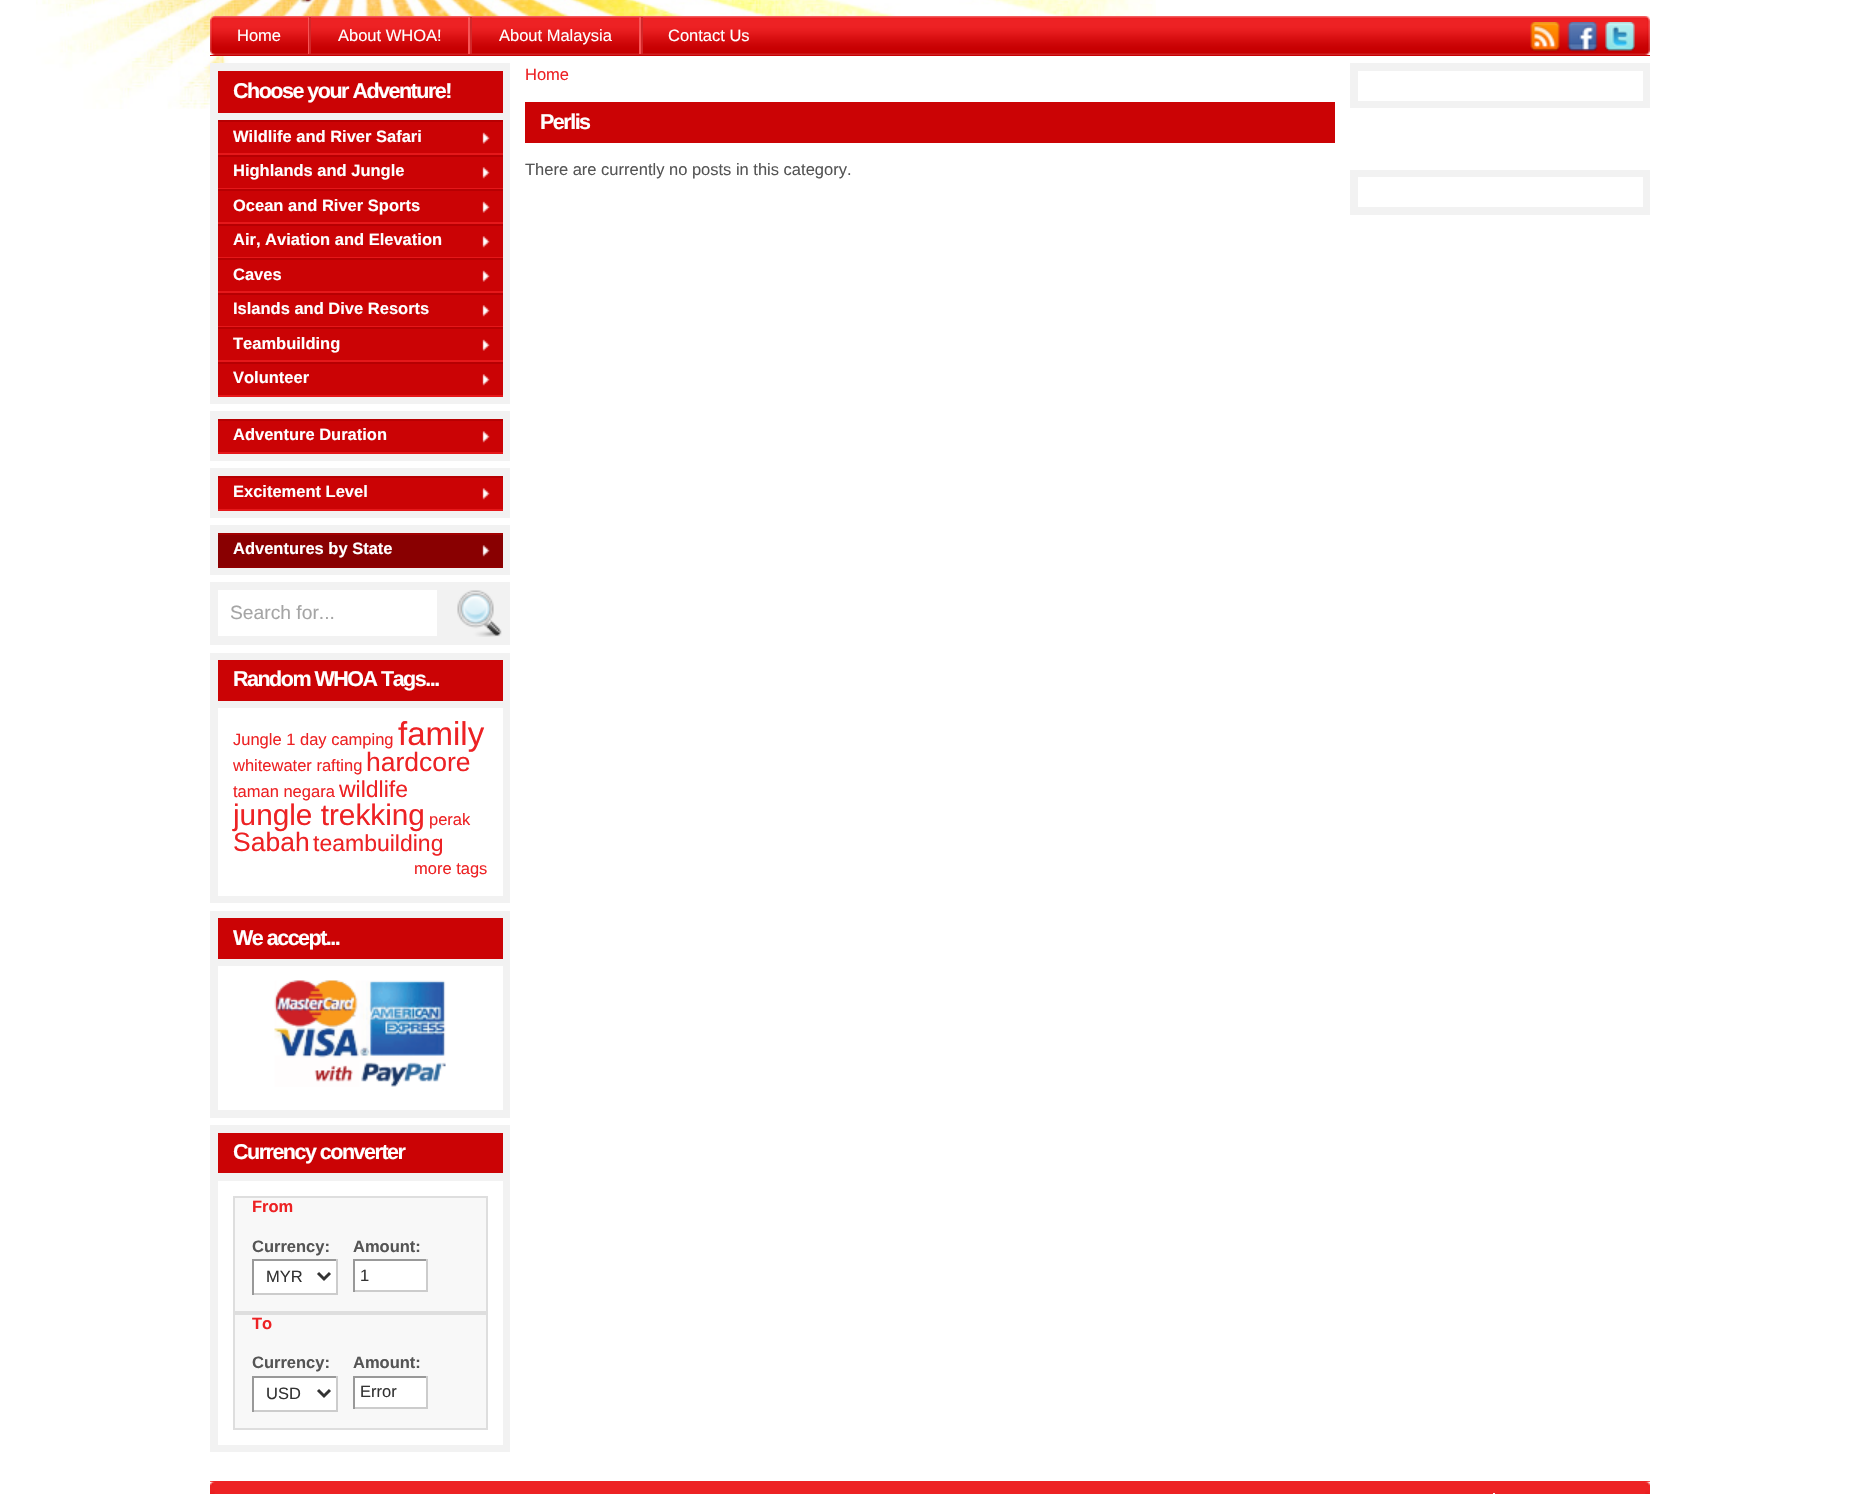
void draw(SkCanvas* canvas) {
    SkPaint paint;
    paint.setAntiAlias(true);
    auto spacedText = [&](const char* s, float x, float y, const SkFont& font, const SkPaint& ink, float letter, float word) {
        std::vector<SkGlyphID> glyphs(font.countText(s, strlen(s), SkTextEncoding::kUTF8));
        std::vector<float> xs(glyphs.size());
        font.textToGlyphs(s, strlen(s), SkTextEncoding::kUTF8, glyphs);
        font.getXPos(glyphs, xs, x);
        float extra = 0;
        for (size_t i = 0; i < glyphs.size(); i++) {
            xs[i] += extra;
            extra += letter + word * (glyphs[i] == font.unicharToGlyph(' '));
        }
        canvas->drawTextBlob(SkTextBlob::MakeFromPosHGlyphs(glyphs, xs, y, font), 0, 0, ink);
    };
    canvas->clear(0xFFFFFFFF);
    canvas->drawImageRect(SkImages::DeferredFromEncodedData(SkData::MakeFromFileName("img1.png")), SkRect::MakeXYWH(36, 0, 1120, 109), SkSamplingOptions());
    canvas->drawImageRect(SkImages::DeferredFromEncodedData(SkData::MakeFromFileName("img2.png")), SkRect::MakeXYWH(300, 0, 13, 3), SkSamplingOptions());
    paint.setColor(0xFFC70002);
    canvas->drawRect(SkRect::MakeXYWH(210, 55, 1440, 1), paint);
    canvas->drawImageRect(SkImages::DeferredFromEncodedData(SkData::MakeFromFileName("img3.png")), SkRect::MakeXYWH(214, 16, 1432, 39), SkSamplingOptions());
    canvas->drawImageRect(SkImages::DeferredFromEncodedData(SkData::MakeFromFileName("img4.png")), SkRect::MakeXYWH(210, 16, 5, 39), SkSamplingOptions());
    canvas->drawImageRect(SkImages::DeferredFromEncodedData(SkData::MakeFromFileName("img5.png")), SkRect::MakeXYWH(1645, 16, 5, 39), SkSamplingOptions());
    paint.setColor(0xFFF85455);
    canvas->drawRect(SkRect::MakeXYWH(308, 17, 1, 37), paint);
    SkFont font1(fontMgr->matchFamilyStyle("Liberation Sans", SkFontStyle::Normal()), 16.5f);
    font1.setSubpixel(true);
    paint.setColor(0xFFFFFFFF);
    canvas->drawString("Home", 237, 41, font1, paint);
    paint.setColor(0xFFF85455);
    canvas->drawRect(SkRect::MakeXYWH(468, 17, 2, 37), paint);
    paint.setColor(0xFFD12729);
    canvas->drawRect(SkRect::MakeXYWH(309, 17, 2, 37), paint);
    paint.setColor(0xFFFFFFFF);
    canvas->drawString("About WHOA!", 338, 41, font1, paint);
    paint.setColor(0xFFF85455);
    canvas->drawRect(SkRect::MakeXYWH(639, 17, 2, 37), paint);
    paint.setColor(0xFFD12729);
    canvas->drawRect(SkRect::MakeXYWH(470, 17, 2, 37), paint);
    paint.setColor(0xFFFFFFFF);
    canvas->drawString("About Malaysia", 499, 41, font1, paint);
    paint.setColor(0xFFD12729);
    canvas->drawRect(SkRect::MakeXYWH(641, 17, 2, 37), paint);
    paint.setColor(0xFFFFFFFF);
    canvas->drawString("Contact Us", 668, 41, font1, paint);
    canvas->drawImageRect(SkImages::DeferredFromEncodedData(SkData::MakeFromFileName("img6.png")), SkRect::MakeXYWH(1530, 22, 30, 30), SkSamplingOptions());
    canvas->drawImageRect(SkImages::DeferredFromEncodedData(SkData::MakeFromFileName("img7.png")), SkRect::MakeXYWH(1567, 22, 31, 30), SkSamplingOptions());
    canvas->drawImageRect(SkImages::DeferredFromEncodedData(SkData::MakeFromFileName("img8.png")), SkRect::MakeXYWH(1605, 22, 30, 30), SkSamplingOptions());
    paint.setColor(0xFFF2F2F2);
    canvas->drawRect(SkRect::MakeXYWH(210, 63, 300, 341), paint);
    paint.setColor(0xFFCB0305);
    canvas->drawRect(SkRect::MakeXYWH(218, 71, 285, 42), paint);
    SkFont font2(fontMgr->matchFamilyStyle("Liberation Sans", SkFontStyle::Bold()), 21.5f);
    font2.setSubpixel(true);
    paint.setColor(0xFFFFFFFF);
    spacedText("Choose your Adventure!", 233, 98, font2, paint, -1.5f, 0);
    paint.setColor(0xFFCB0305);
    canvas->drawRect(SkRect::MakeXYWH(218, 122, 285, 31), paint);
    canvas->drawImageRect(SkImages::DeferredFromEncodedData(SkData::MakeFromFileName("img9.png")), SkRect::MakeXYWH(482, 132, 8, 12), SkSamplingOptions());
    paint.setColor(0xFFB70002);
    canvas->drawRect(SkRect::MakeXYWH(218, 120, 285, 2), paint);
    paint.setColor(0xFFE5181A);
    canvas->drawRect(SkRect::MakeXYWH(218, 153, 285, 2), paint);
    SkFont font3(fontMgr->matchFamilyStyle("Liberation Sans", SkFontStyle::Bold()), 16.5f);
    font3.setSubpixel(true);
    paint.setColor(0xFFFFFFFF);
    canvas->drawString("Wildlife and River Safari", 233, 142, font3, paint);
    paint.setColor(0xFFCB0305);
    canvas->drawRect(SkRect::MakeXYWH(218, 157, 285, 31), paint);
    canvas->drawImageRect(SkImages::DeferredFromEncodedData(SkData::MakeFromFileName("img10.png")), SkRect::MakeXYWH(482, 167, 8, 12), SkSamplingOptions());
    paint.setColor(0xFFB70002);
    canvas->drawRect(SkRect::MakeXYWH(218, 155, 285, 2), paint);
    paint.setColor(0xFFE5181A);
    canvas->drawRect(SkRect::MakeXYWH(218, 188, 285, 1), paint);
    paint.setColor(0xFFFFFFFF);
    canvas->drawString("Highlands and Jungle", 233, 176, font3, paint);
    paint.setColor(0xFFCB0305);
    canvas->drawRect(SkRect::MakeXYWH(218, 191, 285, 31), paint);
    canvas->drawImageRect(SkImages::DeferredFromEncodedData(SkData::MakeFromFileName("img9.png")), SkRect::MakeXYWH(482, 201, 8, 12), SkSamplingOptions());
    paint.setColor(0xFFB70002);
    canvas->drawRect(SkRect::MakeXYWH(218, 189, 285, 2), paint);
    paint.setColor(0xFFE5181A);
    canvas->drawRect(SkRect::MakeXYWH(218, 222, 285, 2), paint);
    paint.setColor(0xFFFFFFFF);
    canvas->drawString("Ocean and River Sports", 233, 211, font3, paint);
    paint.setColor(0xFFCB0305);
    canvas->drawRect(SkRect::MakeXYWH(218, 226, 285, 31), paint);
    canvas->drawImageRect(SkImages::DeferredFromEncodedData(SkData::MakeFromFileName("img10.png")), SkRect::MakeXYWH(482, 236, 8, 12), SkSamplingOptions());
    paint.setColor(0xFFB70002);
    canvas->drawRect(SkRect::MakeXYWH(218, 224, 285, 2), paint);
    paint.setColor(0xFFE5181A);
    canvas->drawRect(SkRect::MakeXYWH(218, 257, 285, 1), paint);
    paint.setColor(0xFFFFFFFF);
    canvas->drawString("Air, Aviation and Elevation", 233, 245, font3, paint);
    paint.setColor(0xFFCB0305);
    canvas->drawRect(SkRect::MakeXYWH(218, 260, 285, 31), paint);
    canvas->drawImageRect(SkImages::DeferredFromEncodedData(SkData::MakeFromFileName("img9.png")), SkRect::MakeXYWH(482, 270, 8, 12), SkSamplingOptions());
    paint.setColor(0xFFB70002);
    canvas->drawRect(SkRect::MakeXYWH(218, 258, 285, 2), paint);
    paint.setColor(0xFFE5181A);
    canvas->drawRect(SkRect::MakeXYWH(218, 291, 285, 2), paint);
    paint.setColor(0xFFFFFFFF);
    canvas->drawString("Caves", 233, 280, font3, paint);
    paint.setColor(0xFFCB0305);
    canvas->drawRect(SkRect::MakeXYWH(218, 295, 285, 31), paint);
    canvas->drawImageRect(SkImages::DeferredFromEncodedData(SkData::MakeFromFileName("img10.png")), SkRect::MakeXYWH(482, 305, 8, 12), SkSamplingOptions());
    paint.setColor(0xFFB70002);
    canvas->drawRect(SkRect::MakeXYWH(218, 293, 285, 2), paint);
    paint.setColor(0xFFE5181A);
    canvas->drawRect(SkRect::MakeXYWH(218, 326, 285, 1), paint);
    paint.setColor(0xFFFFFFFF);
    canvas->drawString("Islands and Dive Resorts", 233, 314, font3, paint);
    paint.setColor(0xFFCB0305);
    canvas->drawRect(SkRect::MakeXYWH(218, 329, 285, 31), paint);
    canvas->drawImageRect(SkImages::DeferredFromEncodedData(SkData::MakeFromFileName("img9.png")), SkRect::MakeXYWH(482, 339, 8, 12), SkSamplingOptions());
    paint.setColor(0xFFB70002);
    canvas->drawRect(SkRect::MakeXYWH(218, 327, 285, 2), paint);
    paint.setColor(0xFFE5181A);
    canvas->drawRect(SkRect::MakeXYWH(218, 360, 285, 2), paint);
    paint.setColor(0xFFFFFFFF);
    canvas->drawString("Teambuilding", 233, 349, font3, paint);
    paint.setColor(0xFFCB0305);
    canvas->drawRect(SkRect::MakeXYWH(218, 364, 285, 31), paint);
    canvas->drawImageRect(SkImages::DeferredFromEncodedData(SkData::MakeFromFileName("img10.png")), SkRect::MakeXYWH(482, 374, 8, 12), SkSamplingOptions());
    paint.setColor(0xFFB70002);
    canvas->drawRect(SkRect::MakeXYWH(218, 362, 285, 2), paint);
    paint.setColor(0xFFE5181A);
    canvas->drawRect(SkRect::MakeXYWH(218, 395, 285, 2), paint);
    paint.setColor(0xFFFFFFFF);
    canvas->drawString("Volunteer", 233, 383, font3, paint);
    paint.setColor(0xFFF2F2F2);
    canvas->drawRect(SkRect::MakeXYWH(210, 411, 300, 50), paint);
    paint.setColor(0xFFCB0305);
    canvas->drawRect(SkRect::MakeXYWH(218, 421, 285, 31), paint);
    canvas->drawImageRect(SkImages::DeferredFromEncodedData(SkData::MakeFromFileName("img10.png")), SkRect::MakeXYWH(482, 431, 8, 12), SkSamplingOptions());
    paint.setColor(0xFFB70002);
    canvas->drawRect(SkRect::MakeXYWH(218, 419, 285, 2), paint);
    paint.setColor(0xFFE5181A);
    canvas->drawRect(SkRect::MakeXYWH(218, 452, 285, 2), paint);
    paint.setColor(0xFFFFFFFF);
    canvas->drawString("Adventure Duration", 233, 440, font3, paint);
    paint.setColor(0xFFF2F2F2);
    canvas->drawRect(SkRect::MakeXYWH(210, 468, 300, 50), paint);
    paint.setColor(0xFFCB0305);
    canvas->drawRect(SkRect::MakeXYWH(218, 478, 285, 31), paint);
    canvas->drawImageRect(SkImages::DeferredFromEncodedData(SkData::MakeFromFileName("img10.png")), SkRect::MakeXYWH(482, 488, 8, 12), SkSamplingOptions());
    paint.setColor(0xFFB70002);
    canvas->drawRect(SkRect::MakeXYWH(218, 476, 285, 2), paint);
    paint.setColor(0xFFE5181A);
    canvas->drawRect(SkRect::MakeXYWH(218, 509, 285, 2), paint);
    paint.setColor(0xFFFFFFFF);
    canvas->drawString("Excitement Level", 233, 497, font3, paint);
    paint.setColor(0xFFF2F2F2);
    canvas->drawRect(SkRect::MakeXYWH(210, 525, 300, 50), paint);
    paint.setColor(0xFF890001);
    canvas->drawRect(SkRect::MakeXYWH(218, 535, 285, 31), paint);
    canvas->drawImageRect(SkImages::DeferredFromEncodedData(SkData::MakeFromFileName("img11.png")), SkRect::MakeXYWH(482, 545, 8, 12), SkSamplingOptions());
    paint.setColor(0xFFA20001);
    canvas->drawRect(SkRect::MakeXYWH(218, 533, 285, 2), paint);
    paint.setColor(0xFF8F0001);
    canvas->drawRect(SkRect::MakeXYWH(218, 566, 285, 2), paint);
    paint.setColor(0xFFFFFFFF);
    canvas->drawString("Adventures by State", 233, 554, font3, paint);
    paint.setColor(0xFFF2F2F2);
    canvas->drawRect(SkRect::MakeXYWH(210, 582, 300, 63), paint);
    paint.setColor(0xFFFFFFFF);
    canvas->drawRect(SkRect::MakeXYWH(218, 590, 219, 46), paint);
    SkFont font4(fontMgr->matchFamilyStyle("Liberation Sans", SkFontStyle::Normal()), 19.25f);
    font4.setSubpixel(true);
    paint.setColor(0xFFA5A5A5);
    canvas->drawString("Search for...", 230, 619, font4, paint);
    canvas->drawImageRect(SkImages::DeferredFromEncodedData(SkData::MakeFromFileName("img12.png")), SkRect::MakeXYWH(457, 590, 45, 47), SkSamplingOptions());
    paint.setColor(0xFFF2F2F2);
    canvas->drawRect(SkRect::MakeXYWH(210, 653, 300, 250), paint);
    paint.setColor(0xFFCB0305);
    canvas->drawRect(SkRect::MakeXYWH(218, 660, 285, 41), paint);
    paint.setColor(0xFFFFFFFF);
    spacedText("Random WHOA Tags...", 233, 686, font2, paint, -1.5f, 0);
    canvas->drawRect(SkRect::MakeXYWH(218, 708, 285, 188), paint);
    paint.setColor(0xFFED2224);
    canvas->drawString("Jungle 1 day camping", 233, 745, font1, paint);
    SkFont font5(fontMgr->matchFamilyStyle("Liberation Sans", SkFontStyle::Normal()), 33);
    font5.setSubpixel(true);
    canvas->drawString("family", 398, 745, font5, paint);
    canvas->drawString("whitewater rafting", 233, 771, font1, paint);
    SkFont font6(fontMgr->matchFamilyStyle("Liberation Sans", SkFontStyle::Normal()), 26.5f);
    font6.setSubpixel(true);
    canvas->drawString("hardcore", 366, 771, font6, paint);
    canvas->drawString("taman negara", 233, 797, font1, paint);
    SkFont font7(fontMgr->matchFamilyStyle("Liberation Sans", SkFontStyle::Normal()), 23);
    font7.setSubpixel(true);
    canvas->drawString("wildlife", 339, 797, font7, paint);
    SkFont font8(fontMgr->matchFamilyStyle("Liberation Sans", SkFontStyle::Normal()), 29.75f);
    font8.setSubpixel(true);
    canvas->drawString("jungle trekking", 233, 825, font8, paint);
    canvas->drawString("perak", 429, 825, font1, paint);
    canvas->drawString("Sabah", 233, 851, font6, paint);
    canvas->drawString("teambuilding", 313, 851, font7, paint);
    canvas->drawString("more tags", 414, 874, font1, paint);
    paint.setColor(0xFFF2F2F2);
    canvas->drawRect(SkRect::MakeXYWH(210, 911, 300, 207), paint);
    paint.setColor(0xFFCB0305);
    canvas->drawRect(SkRect::MakeXYWH(218, 918, 285, 41), paint);
    paint.setColor(0xFFFFFFFF);
    spacedText("We accept...", 233, 945, font2, paint, -1.5f, 0);
    canvas->drawRect(SkRect::MakeXYWH(218, 966, 285, 144), paint);
    canvas->drawImageRect(SkImages::DeferredFromEncodedData(SkData::MakeFromFileName("img13.png")), SkRect::MakeXYWH(274, 980, 172, 107), SkSamplingOptions());
    paint.setColor(0xFFF2F2F2);
    canvas->drawRect(SkRect::MakeXYWH(210, 1125, 300, 327), paint);
    paint.setColor(0xFFCB0305);
    canvas->drawRect(SkRect::MakeXYWH(218, 1133, 285, 40), paint);
    paint.setColor(0xFFFFFFFF);
    spacedText("Currency converter", 233, 1159, font2, paint, -1.5f, 0);
    canvas->drawRect(SkRect::MakeXYWH(218, 1181, 285, 264), paint);
    paint.setColor(0xFFF8F8F8);
    canvas->drawRect(SkRect::MakeXYWH(234, 1197, 253, 115), paint);
    paint.setStyle(SkPaint::kStroke_Style);
    paint.setStrokeWidth(2);
    paint.setColor(0xFFDEDEDE);
    canvas->drawRect(SkRect::MakeXYWH(234, 1197, 253, 115), paint);
    paint.setStyle(SkPaint::kFill_Style);
    paint.setColor(0xFFED2224);
    canvas->drawString("From", 252, 1212, font3, paint);
    paint.setColor(0xFF555555);
    canvas->drawString("Currency:", 252, 1252, font3, paint);
    paint.setColor(0xFFFFFFFF);
    canvas->drawRect(SkRect::MakeXYWH(254, 1261, 82, 32), paint);
    paint.setColor(0xFF999999);
    canvas->drawRect(SkRect::MakeXYWH(252, 1259, 86, 2), paint);
    paint.setColor(0xFFCCCCCC);
    canvas->drawRect(SkRect::MakeXYWH(336, 1259, 2, 36), paint);
    canvas->drawRect(SkRect::MakeXYWH(252, 1293, 86, 2), paint);
    paint.setColor(0xFF999999);
    canvas->drawRect(SkRect::MakeXYWH(252, 1259, 2, 36), paint);
    paint.setStyle(SkPaint::kStroke_Style);
    paint.setStrokeWidth(3);
    paint.setColor(0xFF333333);
    canvas->drawPath(SkPathBuilder().moveTo(318, 1273).lineTo(324, 1279).lineTo(330, 1273).detach(), paint);
    paint.setStyle(SkPaint::kFill_Style);
    canvas->drawString("MYR", 266, 1282, font1, paint);
    paint.setColor(0xFF555555);
    canvas->drawString("Amount:", 353, 1252, font3, paint);
    paint.setColor(0xFFFFFFFF);
    canvas->drawRect(SkRect::MakeXYWH(355, 1261, 71, 29), paint);
    paint.setColor(0xFF999999);
    canvas->drawRect(SkRect::MakeXYWH(353, 1259, 75, 2), paint);
    paint.setColor(0xFFCCCCCC);
    canvas->drawRect(SkRect::MakeXYWH(426, 1259, 2, 33), paint);
    canvas->drawRect(SkRect::MakeXYWH(353, 1290, 75, 2), paint);
    paint.setColor(0xFF999999);
    canvas->drawRect(SkRect::MakeXYWH(353, 1259, 2, 33), paint);
    paint.setColor(0xFF333333);
    canvas->drawString("1", 360, 1281, font1, paint);
    paint.setColor(0xFFF8F8F8);
    canvas->drawRect(SkRect::MakeXYWH(234, 1314, 253, 115), paint);
    paint.setStyle(SkPaint::kStroke_Style);
    paint.setStrokeWidth(2);
    paint.setColor(0xFFDEDEDE);
    canvas->drawRect(SkRect::MakeXYWH(234, 1314, 253, 115), paint);
    paint.setStyle(SkPaint::kFill_Style);
    paint.setColor(0xFFED2224);
    canvas->drawString("To", 252, 1329, font3, paint);
    paint.setColor(0xFF555555);
    canvas->drawString("Currency:", 252, 1368, font3, paint);
    paint.setColor(0xFFFFFFFF);
    canvas->drawRect(SkRect::MakeXYWH(254, 1378, 82, 32), paint);
    paint.setColor(0xFF999999);
    canvas->drawRect(SkRect::MakeXYWH(252, 1376, 86, 2), paint);
    paint.setColor(0xFFCCCCCC);
    canvas->drawRect(SkRect::MakeXYWH(336, 1376, 2, 36), paint);
    canvas->drawRect(SkRect::MakeXYWH(252, 1410, 86, 2), paint);
    paint.setColor(0xFF999999);
    canvas->drawRect(SkRect::MakeXYWH(252, 1376, 2, 36), paint);
    paint.setStyle(SkPaint::kStroke_Style);
    paint.setStrokeWidth(3);
    paint.setColor(0xFF333333);
    canvas->drawPath(SkPathBuilder().moveTo(318, 1390).lineTo(324, 1396).lineTo(330, 1390).detach(), paint);
    paint.setStyle(SkPaint::kFill_Style);
    canvas->drawString("USD", 266, 1399, font1, paint);
    paint.setColor(0xFF555555);
    canvas->drawString("Amount:", 353, 1368, font3, paint);
    paint.setColor(0xFFFFFFFF);
    canvas->drawRect(SkRect::MakeXYWH(355, 1378, 71, 29), paint);
    paint.setColor(0xFF999999);
    canvas->drawRect(SkRect::MakeXYWH(353, 1376, 75, 2), paint);
    paint.setColor(0xFFCCCCCC);
    canvas->drawRect(SkRect::MakeXYWH(426, 1376, 2, 33), paint);
    canvas->drawRect(SkRect::MakeXYWH(353, 1407, 75, 2), paint);
    paint.setColor(0xFF999999);
    canvas->drawRect(SkRect::MakeXYWH(353, 1376, 2, 33), paint);
    paint.setColor(0xFF333333);
    canvas->drawString("Error", 360, 1397, font1, paint);
    paint.setColor(0xFFED2224);
    canvas->drawString("Home", 525, 80, font1, paint);
    paint.setColor(0xFFCB0305);
    canvas->drawRect(SkRect::MakeXYWH(525, 102, 810, 41), paint);
    paint.setColor(0xFFFFFFFF);
    spacedText("Perlis", 540, 129, font2, paint, -1.5f, 0);
    paint.setColor(0xFF555555);
    canvas->drawString("There are currently no posts in this category.", 525, 175, font1, paint);
    paint.setColor(0xFFF2F2F2);
    canvas->drawRect(SkRect::MakeXYWH(1350, 63, 300, 45), paint);
    paint.setColor(0xFFFFFFFF);
    canvas->drawRect(SkRect::MakeXYWH(1358, 71, 285, 30), paint);
    paint.setColor(0xFFF2F2F2);
    canvas->drawRect(SkRect::MakeXYWH(1350, 170, 300, 45), paint);
    paint.setColor(0xFFFFFFFF);
    canvas->drawRect(SkRect::MakeXYWH(1358, 177, 285, 30), paint);
    paint.setColor(0xFFED2224);
    canvas->drawRect(SkRect::MakeXYWH(210, 1481, 1440, 13), paint);
    canvas->drawImageRect(SkImages::DeferredFromEncodedData(SkData::MakeFromFileName("img14.png")), SkRect::MakeXYWH(210, 1481, 5, 13), SkSamplingOptions());
    canvas->drawImageRect(SkImages::DeferredFromEncodedData(SkData::MakeFromFileName("img15.png")), SkRect::MakeXYWH(1645, 1481, 5, 13), SkSamplingOptions());
    paint.setColor(0xFFFFFFFF);
    canvas->drawRect(SkRect::MakeXYWH(1493, 1493, 2, 1), paint);
}
